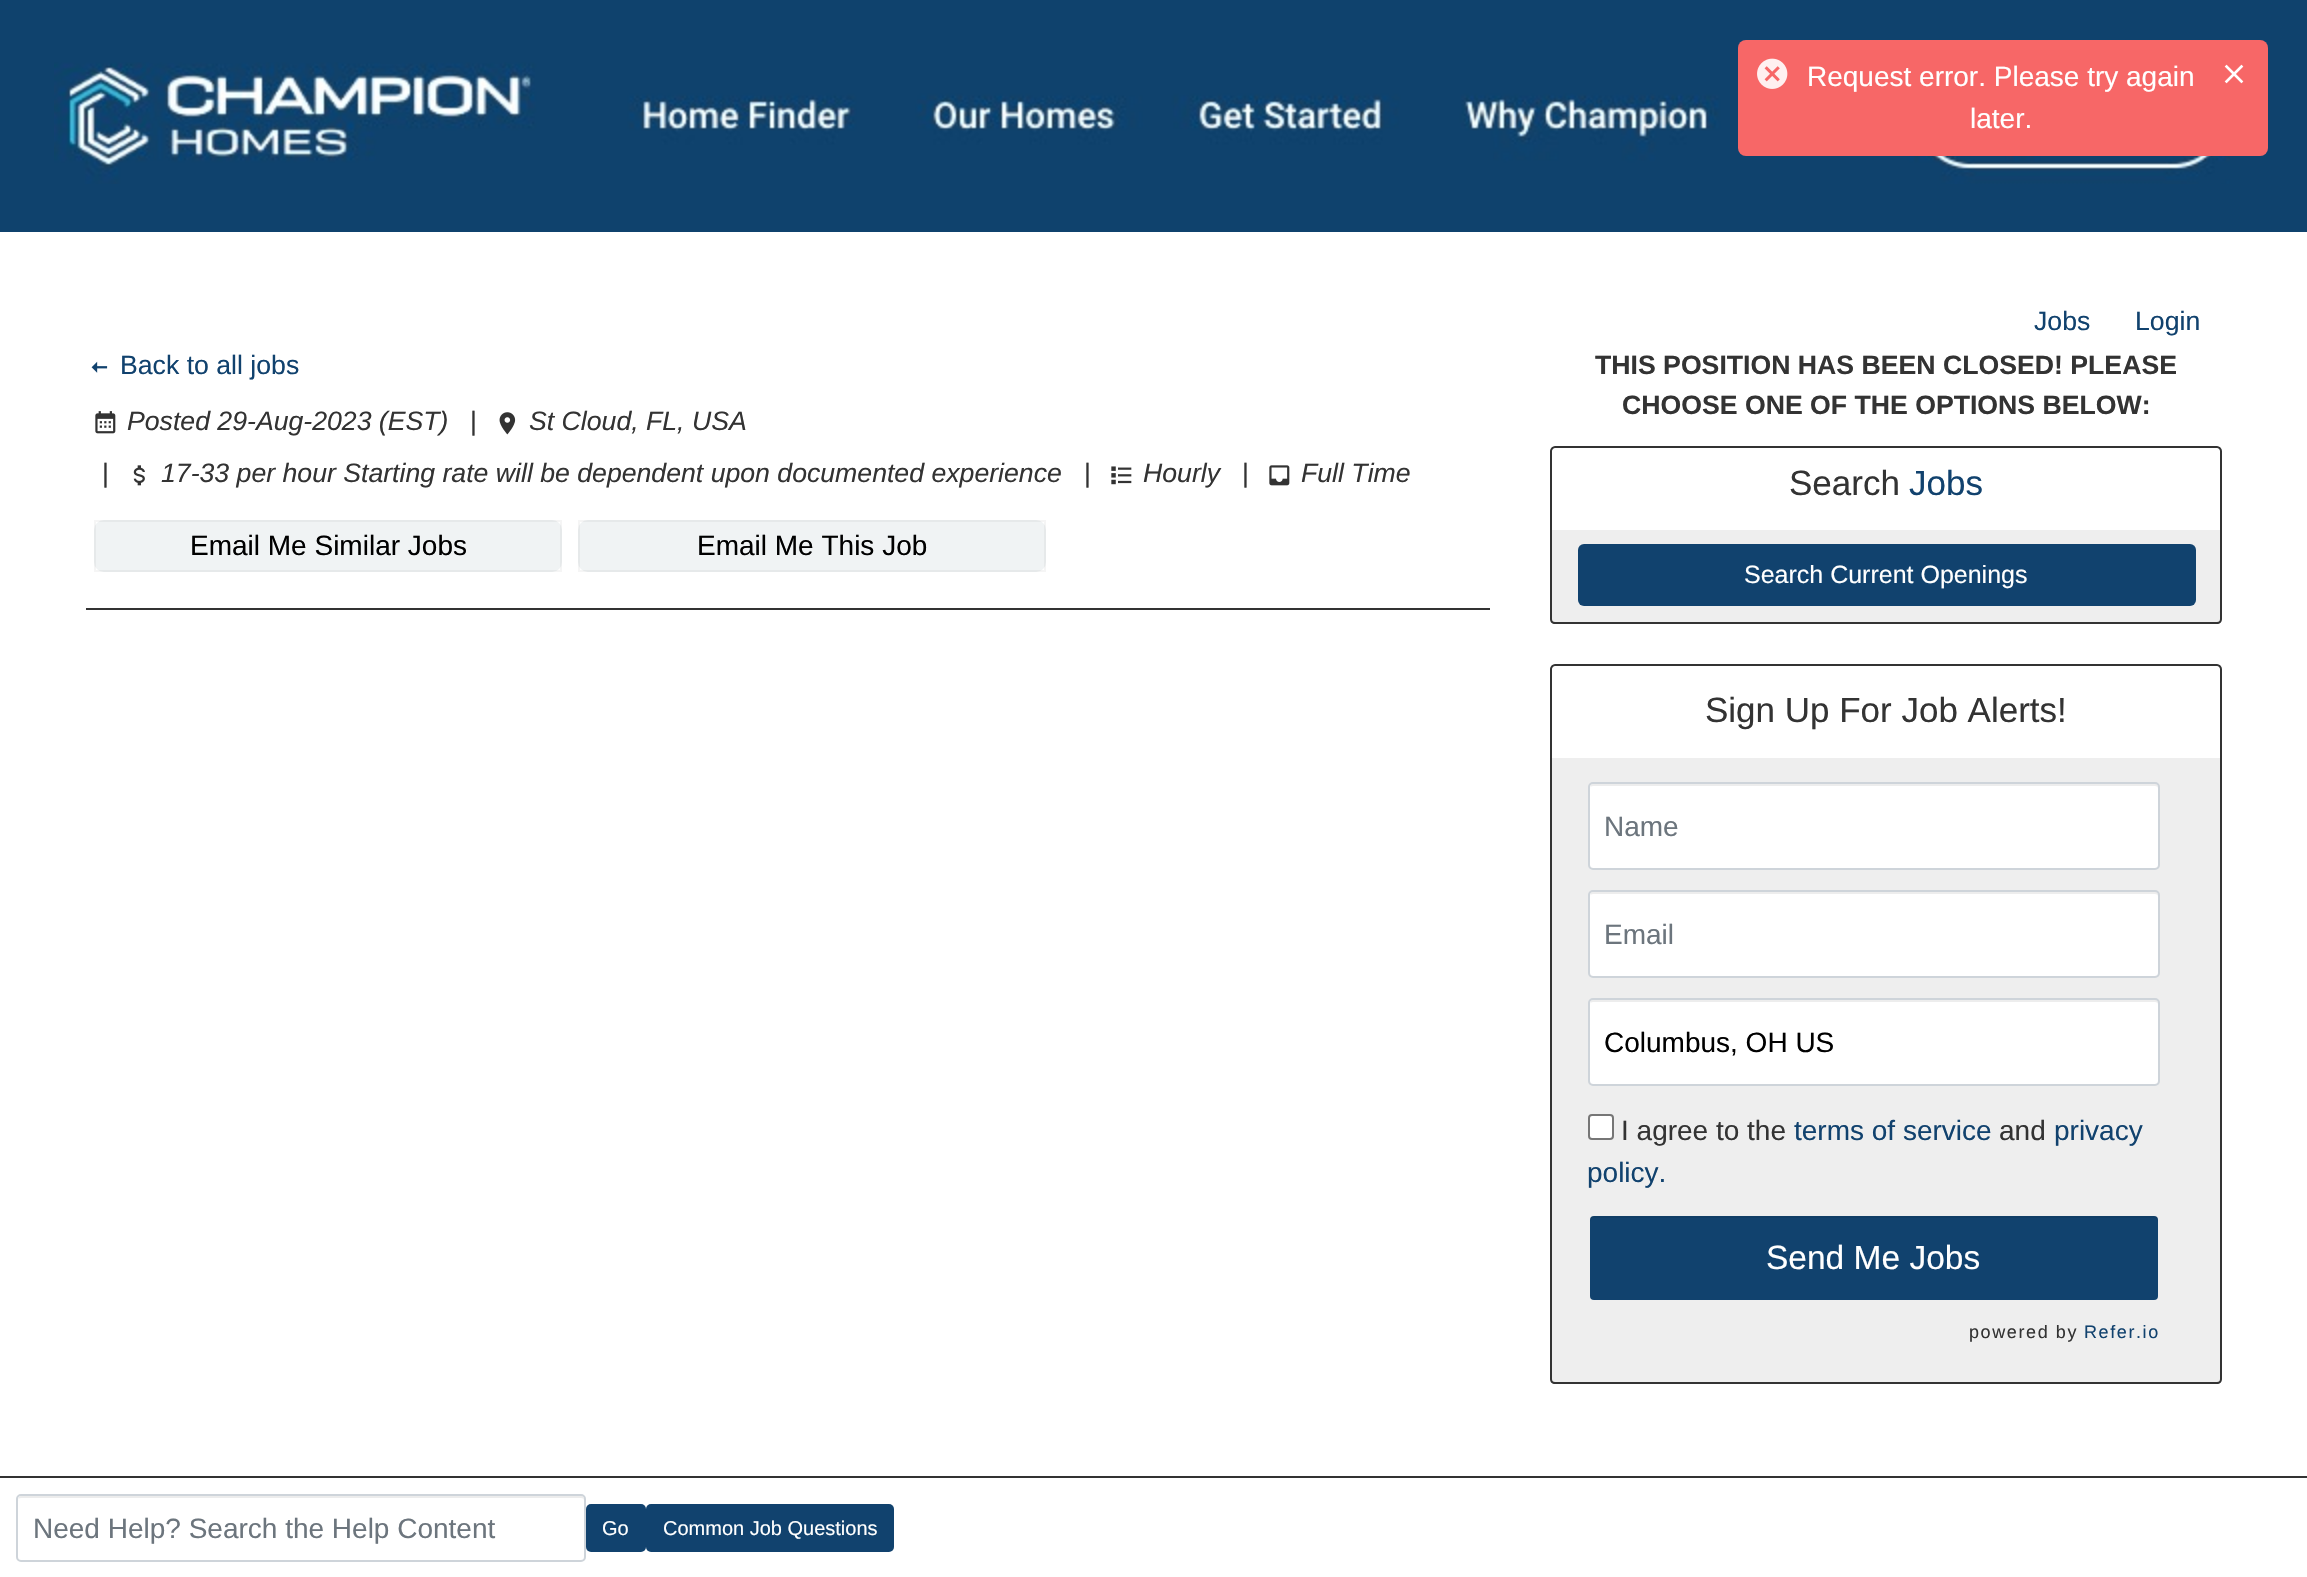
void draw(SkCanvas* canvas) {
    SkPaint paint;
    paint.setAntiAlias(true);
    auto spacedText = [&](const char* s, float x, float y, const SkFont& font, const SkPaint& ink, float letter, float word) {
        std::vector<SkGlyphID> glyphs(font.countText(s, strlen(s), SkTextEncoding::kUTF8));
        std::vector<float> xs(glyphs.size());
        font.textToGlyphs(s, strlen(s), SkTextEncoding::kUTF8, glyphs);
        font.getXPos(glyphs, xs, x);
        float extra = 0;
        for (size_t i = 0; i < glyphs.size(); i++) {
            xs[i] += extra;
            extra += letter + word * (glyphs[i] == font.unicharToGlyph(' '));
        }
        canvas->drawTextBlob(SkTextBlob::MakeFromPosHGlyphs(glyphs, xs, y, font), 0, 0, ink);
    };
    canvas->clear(0xFFFFFFFF);
    paint.setColor(0xFF0F426D);
    canvas->drawRect(SkRect::MakeXYWH(0, 0, 2307, 232), paint);
    canvas->drawImageRect(SkImages::DeferredFromEncodedData(SkData::MakeFromFileName("img3.png")), SkRect::MakeXYWH(54, 62, 2176, 122), SkSamplingOptions());
    paint.setColor(0xFFF65555);
    canvas->drawRoundRect(SkRect::MakeXYWH(1738, 40, 530, 116), 8, 8, paint);
    canvas->drawImageRect(SkImages::DeferredFromEncodedData(SkData::MakeFromFileName("img1.png")), SkRect::MakeXYWH(1757, 58, 31, 31), SkSamplingOptions());
    paint.setColor(0x1AFFFFFF);
    canvas->drawRoundRect(SkRect::MakeXYWH(1738, 40, 530, 116), 8, 8, paint);
    SkFont font1(fontMgr->matchFamilyStyle("Liberation Sans", SkFontStyle::Normal()), 28);
    font1.setSubpixel(true);
    paint.setColor(0xFFFFFFFF);
    canvas->drawString("Request error. Please try again", 1807, 86, font1, paint);
    canvas->drawString("later.", 1970, 128, font1, paint);
    canvas->drawImageRect(SkImages::DeferredFromEncodedData(SkData::MakeFromFileName("img2.png")), SkRect::MakeXYWH(2224, 64, 20, 20), SkSamplingOptions());
    SkFont font2(fontMgr->matchFamilyStyle("Liberation Sans", SkFontStyle::Normal()), 26.65f);
    font2.setSubpixel(true);
    paint.setColor(0xFF11426E);
    canvas->drawString("Jobs", 2034, 330, font2, paint);
    canvas->drawString("Login", 2135, 330, font2, paint);
    canvas->drawImageRect(SkImages::DeferredFromEncodedData(SkData::MakeFromFileName("img4.png")), SkRect::MakeXYWH(91, 361, 17, 12), SkSamplingOptions());
    canvas->drawString("Back to all jobs", 120, 374, font2, paint);
    canvas->drawImageRect(SkImages::DeferredFromEncodedData(SkData::MakeFromFileName("img5.png")), SkRect::MakeXYWH(95, 411, 21, 23), SkSamplingOptions());
    SkFont font3(fontMgr->matchFamilyStyle("Liberation Sans", SkFontStyle::Italic()), 26.65f);
    font3.setSubpixel(true);
    paint.setColor(0xFF333333);
    canvas->drawString("Posted 29-Aug-2023 (EST)", 127, 430, font3, paint);
    canvas->drawString("|", 470, 430, font2, paint);
    canvas->drawImageRect(SkImages::DeferredFromEncodedData(SkData::MakeFromFileName("img6.png")), SkRect::MakeXYWH(499, 412, 17, 23), SkSamplingOptions());
    canvas->drawString("St Cloud, FL, USA", 529, 430, font3, paint);
    canvas->drawString("|", 102, 482, font2, paint);
    canvas->drawImageRect(SkImages::DeferredFromEncodedData(SkData::MakeFromFileName("img7.png")), SkRect::MakeXYWH(133, 465, 12, 21), SkSamplingOptions());
    canvas->drawString("17-33 per hour Starting rate will be dependent upon documented experience", 161, 482, font3, paint);
    canvas->drawString("|", 1084, 482, font2, paint);
    canvas->drawImageRect(SkImages::DeferredFromEncodedData(SkData::MakeFromFileName("img8.png")), SkRect::MakeXYWH(1111, 466, 21, 19), SkSamplingOptions());
    canvas->drawString("Hourly", 1143, 482, font3, paint);
    canvas->drawString("|", 1242, 482, font2, paint);
    canvas->drawImageRect(SkImages::DeferredFromEncodedData(SkData::MakeFromFileName("img9.png")), SkRect::MakeXYWH(1269, 465, 21, 21), SkSamplingOptions());
    canvas->drawString("Full Time", 1301, 482, font3, paint);
    paint.setColor(0xFFF0F3F4);
    canvas->drawRoundRect(SkRect::MakeXYWH(94, 520, 468, 52), 10, 10, paint);
    paint.setStyle(SkPaint::kStroke_Style);
    paint.setStrokeWidth(2);
    paint.setColor(0x0A000000);
    canvas->drawRect(SkRect::MakeXYWH(95, 521, 466, 50), paint);
    paint.setStyle(SkPaint::kFill_Style);
    paint.setColor(0xFF000000);
    canvas->drawString("Email Me Similar Jobs", 190, 555, font1, paint);
    paint.setColor(0xFFF0F3F4);
    canvas->drawRoundRect(SkRect::MakeXYWH(578, 520, 468, 52), 10, 10, paint);
    paint.setStyle(SkPaint::kStroke_Style);
    paint.setColor(0x0A000000);
    canvas->drawRect(SkRect::MakeXYWH(579, 521, 466, 50), paint);
    paint.setStyle(SkPaint::kFill_Style);
    paint.setColor(0xFF000000);
    canvas->drawString("Email Me This Job", 697, 555, font1, paint);
    paint.setColor(0xFF333333);
    canvas->drawRect(SkRect::MakeXYWH(86, 608, 1404, 2), paint);
    SkFont font4(fontMgr->matchFamilyStyle("Liberation Sans", SkFontStyle::Bold()), 26.65f);
    font4.setSubpixel(true);
    canvas->drawString("THIS POSITION HAS BEEN CLOSED! PLEASE", 1595, 374, font4, paint);
    canvas->drawString("CHOOSE ONE OF THE OPTIONS BELOW:", 1622, 414, font4, paint);
    paint.setStyle(SkPaint::kStroke_Style);
    canvas->drawPath(SkPathBuilder().moveTo(1555, 447).lineTo(2217, 447).cubicTo(2219, 447, 2221, 449, 2221, 451).lineTo(2221, 531).lineTo(1551, 531).lineTo(1551, 451).cubicTo(1551, 449, 1553, 447, 1555, 447).close().detach(), paint);
    SkFont font5(fontMgr->matchFamilyStyle("Liberation Sans", SkFontStyle::Normal()), 35);
    font5.setSubpixel(true);
    paint.setStyle(SkPaint::kFill_Style);
    canvas->drawString("Search", 1789, 495, font5, paint);
    paint.setColor(0xFF11426E);
    canvas->drawString("Jobs", 1909, 495, font5, paint);
    paint.setColor(0xFFEEEEEE);
    canvas->drawPath(SkPathBuilder().moveTo(1552, 530).lineTo(2220, 530).lineTo(2220, 619).cubicTo(2220, 620.5f, 2218.5f, 622, 2217, 622).lineTo(1555, 622).cubicTo(1553.5f, 622, 1552, 620.5f, 1552, 619).close().detach(), paint);
    paint.setColor(0xFF333333);
    canvas->drawPath(SkPathBuilder(SkPathFillType::kEvenOdd).moveTo(1550, 530).lineTo(2222, 530).lineTo(2222, 619).cubicTo(2222, 622, 2220, 624, 2217, 624).lineTo(1555, 624).cubicTo(1552, 624, 1550, 622, 1550, 619).close().moveTo(1552, 530).lineTo(2220, 530).lineTo(2220, 619).cubicTo(2220, 621, 2219, 622, 2217, 622).lineTo(1555, 622).cubicTo(1553, 622, 1552, 621, 1552, 619).close().detach(), paint);
    paint.setColor(0xFF11426E);
    canvas->drawRoundRect(SkRect::MakeXYWH(1578, 544, 618, 62), 6, 6, paint);
    SkFont font6(fontMgr->matchFamilyStyle("Liberation Sans", SkFontStyle::Normal()), 25);
    font6.setSubpixel(true);
    paint.setColor(0xFFFFFFFF);
    canvas->drawString("Search Current Openings", 1744, 583, font6, paint);
    paint.setStyle(SkPaint::kStroke_Style);
    paint.setColor(0xFF333333);
    canvas->drawPath(SkPathBuilder().moveTo(1555, 665).lineTo(2217, 665).cubicTo(2219, 665, 2221, 667, 2221, 669).lineTo(2221, 759).lineTo(1551, 759).lineTo(1551, 669).cubicTo(1551, 667, 1553, 665, 1555, 665).close().detach(), paint);
    paint.setStyle(SkPaint::kFill_Style);
    canvas->drawString("Sign Up For Job Alerts!", 1705, 722, font5, paint);
    paint.setColor(0xFFEEEEEE);
    canvas->drawPath(SkPathBuilder().moveTo(1552, 758).lineTo(2220, 758).lineTo(2220, 1379).cubicTo(2220, 1380.5f, 2218.5f, 1382, 2217, 1382).lineTo(1555, 1382).cubicTo(1553.5f, 1382, 1552, 1380.5f, 1552, 1379).close().detach(), paint);
    paint.setColor(0xFF333333);
    canvas->drawPath(SkPathBuilder(SkPathFillType::kEvenOdd).moveTo(1550, 758).lineTo(2222, 758).lineTo(2222, 1379).cubicTo(2222, 1382, 2220, 1384, 2217, 1384).lineTo(1555, 1384).cubicTo(1552, 1384, 1550, 1382, 1550, 1379).close().moveTo(1552, 758).lineTo(2220, 758).lineTo(2220, 1379).cubicTo(2220, 1381, 2219, 1382, 2217, 1382).lineTo(1555, 1382).cubicTo(1553, 1382, 1552, 1381, 1552, 1379).close().detach(), paint);
    paint.setColor(0xFFFFFFFF);
    canvas->drawRoundRect(SkRect::MakeXYWH(1590, 784, 568, 84), 3, 3, paint);
    paint.setColor(0x12000000);
    canvas->drawPath(SkPathBuilder().moveTo(1593, 786).lineTo(2155, 786).cubicTo(2157, 786, 2158, 787, 2158, 789).cubicTo(2158, 787, 2158, 784, 2155, 784).lineTo(1593, 784).lineTo(1591, 785).lineTo(1590, 789).cubicTo(1590, 787, 1591, 786, 1593, 786).close().detach(), paint);
    paint.setStyle(SkPaint::kStroke_Style);
    paint.setColor(0xFFCED4DA);
    canvas->drawRoundRect(SkRect::MakeXYWH(1589, 783, 570, 86), 4, 4, paint);
    paint.setStyle(SkPaint::kFill_Style);
    paint.setColor(0xFF6C757D);
    canvas->drawString("Name", 1604, 836, font1, paint);
    paint.setColor(0xFFFFFFFF);
    canvas->drawRoundRect(SkRect::MakeXYWH(1590, 892, 568, 84), 3, 3, paint);
    paint.setColor(0x12000000);
    canvas->drawPath(SkPathBuilder().moveTo(1593, 894).lineTo(2155, 894).cubicTo(2157, 894, 2158, 895, 2158, 897).cubicTo(2158, 895, 2158, 892, 2155, 892).lineTo(1593, 892).lineTo(1591, 893).lineTo(1590, 897).cubicTo(1590, 895, 1591, 894, 1593, 894).close().detach(), paint);
    paint.setStyle(SkPaint::kStroke_Style);
    paint.setColor(0xFFCED4DA);
    canvas->drawRoundRect(SkRect::MakeXYWH(1589, 891, 570, 86), 4, 4, paint);
    paint.setStyle(SkPaint::kFill_Style);
    paint.setColor(0xFF6C757D);
    canvas->drawString("Email", 1604, 944, font1, paint);
    paint.setColor(0xFFFFFFFF);
    canvas->drawRoundRect(SkRect::MakeXYWH(1590, 1000, 568, 84), 3, 3, paint);
    paint.setColor(0x12000000);
    canvas->drawPath(SkPathBuilder().moveTo(1593, 1002).lineTo(2155, 1002).cubicTo(2157, 1002, 2158, 1003, 2158, 1005).cubicTo(2158, 1003, 2158, 1000, 2155, 1000).lineTo(1593, 1000).lineTo(1591, 1001).lineTo(1590, 1005).cubicTo(1590, 1003, 1591, 1002, 1593, 1002).close().detach(), paint);
    paint.setStyle(SkPaint::kStroke_Style);
    paint.setColor(0xFFCED4DA);
    canvas->drawRoundRect(SkRect::MakeXYWH(1589, 999, 570, 86), 4, 4, paint);
    paint.setStyle(SkPaint::kFill_Style);
    paint.setColor(0xFF000000);
    canvas->drawString("Columbus, OH US", 1604, 1052, font1, paint);
    paint.setColor(0xFFFFFFFF);
    canvas->drawRoundRect(SkRect::MakeXYWH(1589, 1115, 24, 24), 3, 3, paint);
    paint.setStyle(SkPaint::kStroke_Style);
    paint.setColor(0xFF767676);
    canvas->drawRoundRect(SkRect::MakeXYWH(1589, 1115, 24, 24), 3, 3, paint);
    paint.setStyle(SkPaint::kFill_Style);
    paint.setColor(0xFF333333);
    canvas->drawString("I agree to the", 1621, 1140, font1, paint);
    paint.setColor(0xFF11426E);
    canvas->drawString("terms of service", 1794, 1140, font1, paint);
    paint.setColor(0xFF333333);
    canvas->drawString("and", 1999, 1140, font1, paint);
    paint.setColor(0xFF11426E);
    canvas->drawString("privacy", 2054, 1140, font1, paint);
    canvas->drawString("policy.", 1587, 1182, font1, paint);
    canvas->drawRoundRect(SkRect::MakeXYWH(1590, 1216, 568, 84), 4, 4, paint);
    paint.setColor(0x12000000);
    canvas->drawPath(SkPathBuilder().moveTo(1594, 1218).lineTo(2154, 1218).cubicTo(2156, 1218, 2158, 1220, 2158, 1222).cubicTo(2158, 1219, 2158, 1216, 2154, 1216).lineTo(1594, 1216).cubicTo(1590, 1216, 1590, 1219, 1590, 1222).cubicTo(1590, 1220, 1592, 1218, 1594, 1218).close().detach(), paint);
    SkFont font7(fontMgr->matchFamilyStyle("Liberation Sans", SkFontStyle::Normal()), 33.5f);
    font7.setSubpixel(true);
    paint.setColor(0xFFFFFFFF);
    canvas->drawString("Send Me Jobs", 1766, 1269, font7, paint);
    SkFont font8(fontMgr->matchFamilyStyle("Liberation Sans", SkFontStyle::Normal()), 18);
    font8.setSubpixel(true);
    paint.setColor(0xFF333333);
    spacedText("powered by", 1969, 1338, font8, paint, 1.6f, 0);
    paint.setColor(0xFF11426E);
    spacedText("Refer.io", 2084, 1338, font8, paint, 1.6f, 0);
    paint.setColor(0xFF333333);
    canvas->drawRect(SkRect::MakeXYWH(0, 1476, 2307, 2), paint);
    paint.setColor(0xFFECECEC);
    canvas->drawPath(SkPathBuilder().moveTo(21, 1498).lineTo(581, 1498).cubicTo(583, 1498, 584, 1499, 584, 1501).cubicTo(584, 1499, 584, 1496, 581, 1496).lineTo(21, 1496).lineTo(19, 1497).lineTo(18, 1501).cubicTo(18, 1499, 19, 1498, 21, 1498).close().detach(), paint);
    paint.setStyle(SkPaint::kStroke_Style);
    paint.setColor(0xFFCED4DA);
    canvas->drawRoundRect(SkRect::MakeXYWH(17, 1495, 568, 66), 4, 4, paint);
    paint.setStyle(SkPaint::kFill_Style);
    paint.setColor(0xFF6C757D);
    canvas->drawString("Need Help? Search the Help Content", 33, 1538, font1, paint);
    paint.setColor(0xFF11426E);
    canvas->drawRoundRect(SkRect::MakeXYWH(586, 1504, 60, 48), 5, 5, paint);
    SkFont font9(fontMgr->matchFamilyStyle("Liberation Sans", SkFontStyle::Normal()), 20);
    font9.setSubpixel(true);
    paint.setColor(0xFFFFFFFF);
    canvas->drawString("Go", 602, 1535, font9, paint);
    paint.setColor(0xFF11426E);
    canvas->drawRoundRect(SkRect::MakeXYWH(646, 1504, 248, 48), 5, 5, paint);
    paint.setColor(0xFFFFFFFF);
    canvas->drawString("Common Job Questions", 663, 1535, font9, paint);
}
